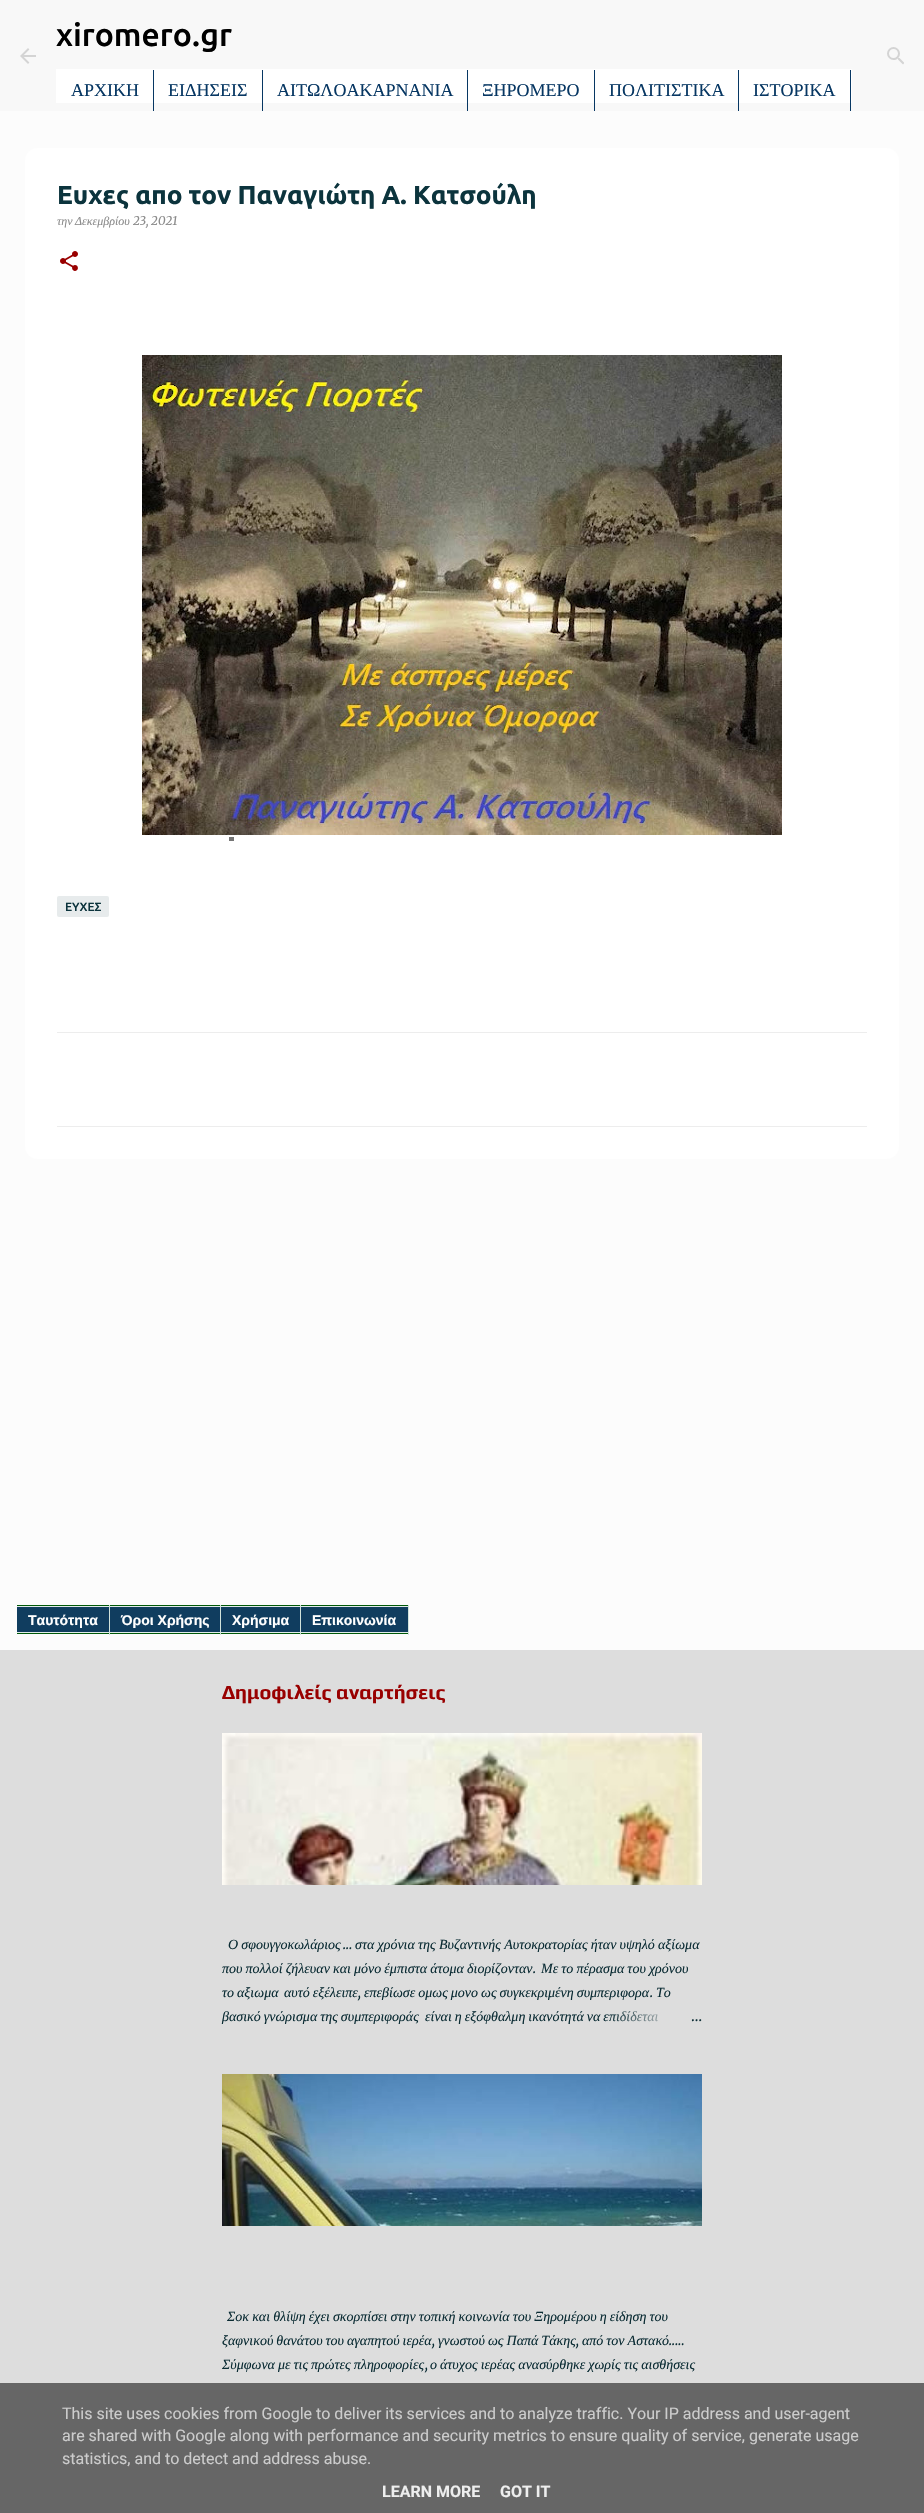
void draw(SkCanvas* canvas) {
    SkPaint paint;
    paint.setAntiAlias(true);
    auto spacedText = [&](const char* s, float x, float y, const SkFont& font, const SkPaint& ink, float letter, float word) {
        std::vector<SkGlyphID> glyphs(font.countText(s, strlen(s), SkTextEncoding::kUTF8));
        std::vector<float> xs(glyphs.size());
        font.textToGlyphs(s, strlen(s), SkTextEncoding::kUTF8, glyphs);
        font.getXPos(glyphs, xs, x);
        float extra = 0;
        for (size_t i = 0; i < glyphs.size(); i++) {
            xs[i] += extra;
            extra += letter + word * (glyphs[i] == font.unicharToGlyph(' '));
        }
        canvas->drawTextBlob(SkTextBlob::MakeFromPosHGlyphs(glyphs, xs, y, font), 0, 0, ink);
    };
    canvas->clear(0xFFFCFCFC);
    paint.setColor(0xFFF8F8F8);
    canvas->drawRect(SkRect::MakeXYWH(0, 0, 924, 111), paint);
    canvas->drawImageRect(SkImages::DeferredFromEncodedData(SkData::MakeFromFileName("img1.png")), SkRect::MakeXYWH(20, 48, 16, 16), SkSamplingOptions());
    SkFont font1(fontMgr->matchFamilyStyle("Ubuntu", SkFontStyle(500, SkFontStyle::kNormal_Width, SkFontStyle::kUpright_Slant)), 32);
    font1.setSubpixel(true);
    paint.setColor(0xFF000000);
    canvas->drawString("xiromero.gr", 56, 46, font1, paint);
    paint.setColor(0xFFFFFFFF);
    canvas->drawRect(SkRect::MakeXYWH(56, 69, 796, 34), paint);
    paint.setColor(0xFF073763);
    canvas->drawRect(SkRect::MakeXYWH(153, 70, 1, 41), paint);
    SkFont font2(fontMgr->matchFamilyStyle("Liberation Serif", SkFontStyle::Normal()), 18);
    font2.setSubpixel(true);
    canvas->drawString("ΑΡΧΙΚΗ", 71, 96, font2, paint);
    canvas->drawRect(SkRect::MakeXYWH(262, 70, 1, 41), paint);
    canvas->drawString("ΕΙΔΗΣΕΙΣ", 168, 96, font2, paint);
    canvas->drawRect(SkRect::MakeXYWH(467, 70, 1, 41), paint);
    canvas->drawString("ΑΙΤΩΛΟΑΚΑΡΝΑΝΙΑ", 277, 96, font2, paint);
    canvas->drawRect(SkRect::MakeXYWH(594, 70, 1, 41), paint);
    canvas->drawString("ΞΗΡΟΜΕΡΟ", 482, 96, font2, paint);
    canvas->drawRect(SkRect::MakeXYWH(738, 70, 1, 41), paint);
    canvas->drawString("ΠΟΛΙΤΙΣΤΙΚΑ", 609, 96, font2, paint);
    canvas->drawRect(SkRect::MakeXYWH(850, 70, 1, 41), paint);
    canvas->drawString("ΙΣΤΟΡΙΚΑ", 753, 96, font2, paint);
    canvas->drawImageRect(SkImages::DeferredFromEncodedData(SkData::MakeFromFileName("img2.png")), SkRect::MakeXYWH(887, 47, 17, 18), SkSamplingOptions());
    paint.setColor(0xFFFFFFFF);
    canvas->drawPath(SkPathBuilder().moveTo(37, 148).lineTo(887, 148).cubicTo(893.5f, 148, 899, 153.5f, 899, 160).lineTo(899, 1032).lineTo(25, 1032).lineTo(25, 160).cubicTo(25, 153.5f, 30.5f, 148, 37, 148).close().detach(), paint);
    SkFont font3(fontMgr->matchFamilyStyle("Ubuntu", SkFontStyle::Bold()), 26);
    font3.setSubpixel(true);
    paint.setColor(0xFF0C343D);
    canvas->drawString("Ευχες απο τον Παναγιώτη Α. Κατσούλη", 57, 204, font3, paint);
    SkFont font4(fontMgr->matchFamilyStyle("Liberation Serif", SkFontStyle::Italic()), 12);
    font4.setSubpixel(true);
    paint.setColor(0xFF8B8B8B);
    canvas->drawString("την", 57, 225, font4, paint);
    canvas->drawString("Δεκεμβρίου", 75, 225, font4, paint);
    SkFont font5(fontMgr->matchFamilyStyle("Merriweather", SkFontStyle(300, SkFontStyle::kNormal_Width, SkFontStyle::kItalic_Slant)), 12);
    font5.setSubpixel(true);
    canvas->drawString("23, 2021", 133, 225, font5, paint);
    canvas->drawImageRect(SkImages::DeferredFromEncodedData(SkData::MakeFromFileName("img3.png")), SkRect::MakeXYWH(60, 251, 18, 20), SkSamplingOptions());
    canvas->drawImageRect(SkImages::DeferredFromEncodedData(SkData::MakeFromFileName("img4.png")), SkRect::MakeXYWH(142, 355, 640, 480), SkSamplingOptions());
    paint.setColor(0xFFE7EBEC);
    canvas->drawRoundRect(SkRect::MakeXYWH(57, 896, 52, 21), 2, 2, paint);
    SkFont font6(fontMgr->matchFamilyStyle("Ubuntu", SkFontStyle(500, SkFontStyle::kNormal_Width, SkFontStyle::kUpright_Slant)), 12);
    font6.setSubpixel(true);
    paint.setColor(0xFF0C343D);
    canvas->drawString("ΕΥΧΕΣ", 65, 911, font6, paint);
    paint.setColor(0xFFFFFFFF);
    canvas->drawPath(SkPathBuilder().moveTo(25, 1032).lineTo(899, 1032).lineTo(899, 1147).cubicTo(899, 1153.5f, 893.5f, 1159, 887, 1159).lineTo(37, 1159).cubicTo(30.5f, 1159, 25, 1153.5f, 25, 1147).close().detach(), paint);
    paint.setColor(0xFFEDEDED);
    canvas->drawRect(SkRect::MakeXYWH(57, 1032, 810, 1), paint);
    canvas->drawRect(SkRect::MakeXYWH(57, 1126, 810, 1), paint);
    paint.setColor(0xFF103D5F);
    canvas->drawRect(SkRect::MakeXYWH(17, 1607, 391, 25), paint);
    paint.setColor(0xFF005808);
    canvas->drawRect(SkRect::MakeXYWH(17, 1605, 392, 1), paint);
    canvas->drawRect(SkRect::MakeXYWH(17, 1633, 392, 1), paint);
    paint.setColor(0xFFE0EDE9);
    canvas->drawRect(SkRect::MakeXYWH(17, 1606, 392, 1), paint);
    canvas->drawRect(SkRect::MakeXYWH(17, 1632, 392, 1), paint);
    SkFont font7(fontMgr->matchFamilyStyle("Liberation Sans", SkFontStyle::Bold()), 14);
    font7.setSubpixel(true);
    paint.setColor(0xFFFFFFFF);
    canvas->drawString("Ταυτότητα", 28, 1625, font7, paint);
    paint.setColor(0xFFD1E3DB);
    canvas->drawRect(SkRect::MakeXYWH(109, 1605, 1, 30), paint);
    paint.setColor(0xFFFFFFFF);
    canvas->drawString("Όροι Χρήσης", 121, 1625, font7, paint);
    paint.setColor(0xFFD1E3DB);
    canvas->drawRect(SkRect::MakeXYWH(220, 1605, 1, 30), paint);
    paint.setColor(0xFFFFFFFF);
    canvas->drawString("Χρήσιμα", 232, 1625, font7, paint);
    paint.setColor(0xFFD1E3DB);
    canvas->drawRect(SkRect::MakeXYWH(300, 1605, 1, 30), paint);
    paint.setColor(0xFFFFFFFF);
    canvas->drawString("Eπικοινωνία", 312, 1625, font7, paint);
    paint.setColor(0xFFD1E3DB);
    canvas->drawRect(SkRect::MakeXYWH(408, 1605, 1, 30), paint);
    paint.setColor(0xFFDDDDDD);
    canvas->drawRect(SkRect::MakeXYWH(0, 1650, 924, 733), paint);
    SkFont font8(fontMgr->matchFamilyStyle("Play", SkFontStyle::Bold()), 20);
    font8.setSubpixel(true);
    paint.setColor(0xFF990000);
    canvas->drawString("Δημοφιλείς αναρτήσεις", 222, 1699, font8, paint);
    canvas->drawImageRect(SkImages::DeferredFromEncodedData(SkData::MakeFromFileName("img5.png")), SkRect::MakeXYWH(222, 1733, 480, 152), SkSamplingOptions());
    SkFont font9(fontMgr->matchFamilyStyle("Liberation Serif", SkFontStyle::Italic()), 14);
    font9.setSubpixel(true);
    paint.setColor(0xFF0A2B33);
    spacedText("Ο σφουγγοκωλάριος", 228, 1949, font9, paint, 0, -0.25f);
    SkFont font10(fontMgr->matchFamilyStyle("Merriweather", SkFontStyle(300, SkFontStyle::kNormal_Width, SkFontStyle::kItalic_Slant)), 14);
    font10.setSubpixel(true);
    canvas->drawString("...", 343, 1949, font10, paint);
    spacedText("στα χρόνια της Βυζαντινής Αυτοκρατορίας ήταν υψηλό αξίωμα", 355, 1949, font9, paint, 0, -0.25f);
    spacedText("που πολλοί ζήλευαν και μόνο έμπιστα άτομα διορίζονταν", 222, 1973, font9, paint, 0, -0.4f);
    canvas->drawString(".", 533, 1973, font10, paint);
    spacedText("Με το πέρασμα του χρόνου", 541, 1973, font9, paint, 0, -0.4f);
    spacedText("το αξιωμα", 222, 1997, font9, paint, 0, -0.5f);
    spacedText("αυτό εξέλειπε", 284, 1997, font9, paint, 0, -0.5f);
    spacedText("επεβίωσε ομως μονο ως συγκεκριμένη συμπεριφορα", 364, 1997, font9, paint, 0, -0.5f);
    canvas->drawString("Το", 656, 1997, font9, paint);
    canvas->drawString(",", 358, 1997, font10, paint);
    canvas->drawString(".", 650, 1997, font10, paint);
    spacedText("βασικό γνώρισμα της συμπεριφοράς", 222, 2021, font9, paint, 0, -0.5f);
    spacedText("είναι η εξόφθαλμη ικανότητά να επιδίδεται", 425, 2021, font9, paint, 0, -0.5f);
    {
        const SkColor colors[] = {0xFFDDDDDD, 0xFFDDDDDD, 0x00DDDDDD};
        const float stops[] = {0, 0.2f, 1};
        const SkPoint ends[] = {{702, 2016}, {606, 2016}};
        paint.setShader(SkGradientShader::MakeLinear(ends, colors, stops, 3, SkTileMode::kClamp));
        paint.setAlpha(255);
    }
    canvas->drawRect(SkRect::MakeXYWH(608, 2011, 51, 11), paint);
    SkFont font11(fontMgr->matchFamilyStyle("Merriweather", SkFontStyle::Normal()), 14);
    font11.setSubpixel(true);
    paint.setShader(nullptr);
    paint.setColor(0xFF0A2B33);
    canvas->drawString("…", 691, 2021, font11, paint);
    canvas->drawImageRect(SkImages::DeferredFromEncodedData(SkData::MakeFromFileName("img6.png")), SkRect::MakeXYWH(222, 2074, 480, 152), SkSamplingOptions());
    spacedText("Σοκ και θλίψη έχει σκορπίσει στην τοπική κοινωνία του Ξηρομέρου η είδηση του", 227, 2321, font9, paint, 0, -0.4f);
    spacedText("ξαφνικού θανάτου του αγαπητού ιερέα", 222, 2345, font9, paint, 0, -0.5f);
    spacedText("γνωστού ως Παπά Τάκης", 438, 2345, font9, paint, 0, -0.5f);
    spacedText("από τον Αστακό", 582, 2345, font9, paint, 0, -0.5f);
    canvas->drawString(",", 432, 2345, font10, paint);
    canvas->drawString(",", 576, 2345, font10, paint);
    canvas->drawString(".....", 669, 2345, font10, paint);
    spacedText("Σύμφωνα με τις πρώτες πληροφορίες", 222, 2369, font9, paint, 0, -0.5f);
    canvas->drawString(",", 425, 2369, font10, paint);
    spacedText("ο άτυχος ιερέας ανασύρθηκε χωρίς τις αισθήσεις", 430, 2369, font9, paint, 0, -0.5f);
    paint.setColor(0xFF757575);
    canvas->drawRect(SkRect::MakeXYWH(229, 837, 5, 4), paint);
    paint.setColor(0xFF666666);
    canvas->drawRect(SkRect::MakeXYWH(0, 2383, 924, 130), paint);
    SkFont font12(fontMgr->matchFamilyStyle("Roboto", SkFontStyle::Normal()), 16);
    font12.setSubpixel(true);
    paint.setColor(0xFFCCCCCC);
    canvas->drawString("This site uses cookies from Google to deliver its services and to analyze traffic. Your IP address and user-agent", 62, 2419, font12, paint);
    canvas->drawString("are shared with Google along with performance and security metrics to ensure quality of service, generate usage", 62, 2441, font12, paint);
    canvas->drawString("statistics, and to detect and address abuse.", 62, 2464, font12, paint);
    SkFont font13(fontMgr->matchFamilyStyle("Roboto", SkFontStyle::Bold()), 16);
    font13.setSubpixel(true);
    paint.setColor(0xFFEEEEEE);
    canvas->drawString("LEARN MORE", 382, 2497, font13, paint);
    canvas->drawString("GOT IT", 500, 2497, font13, paint);
}
